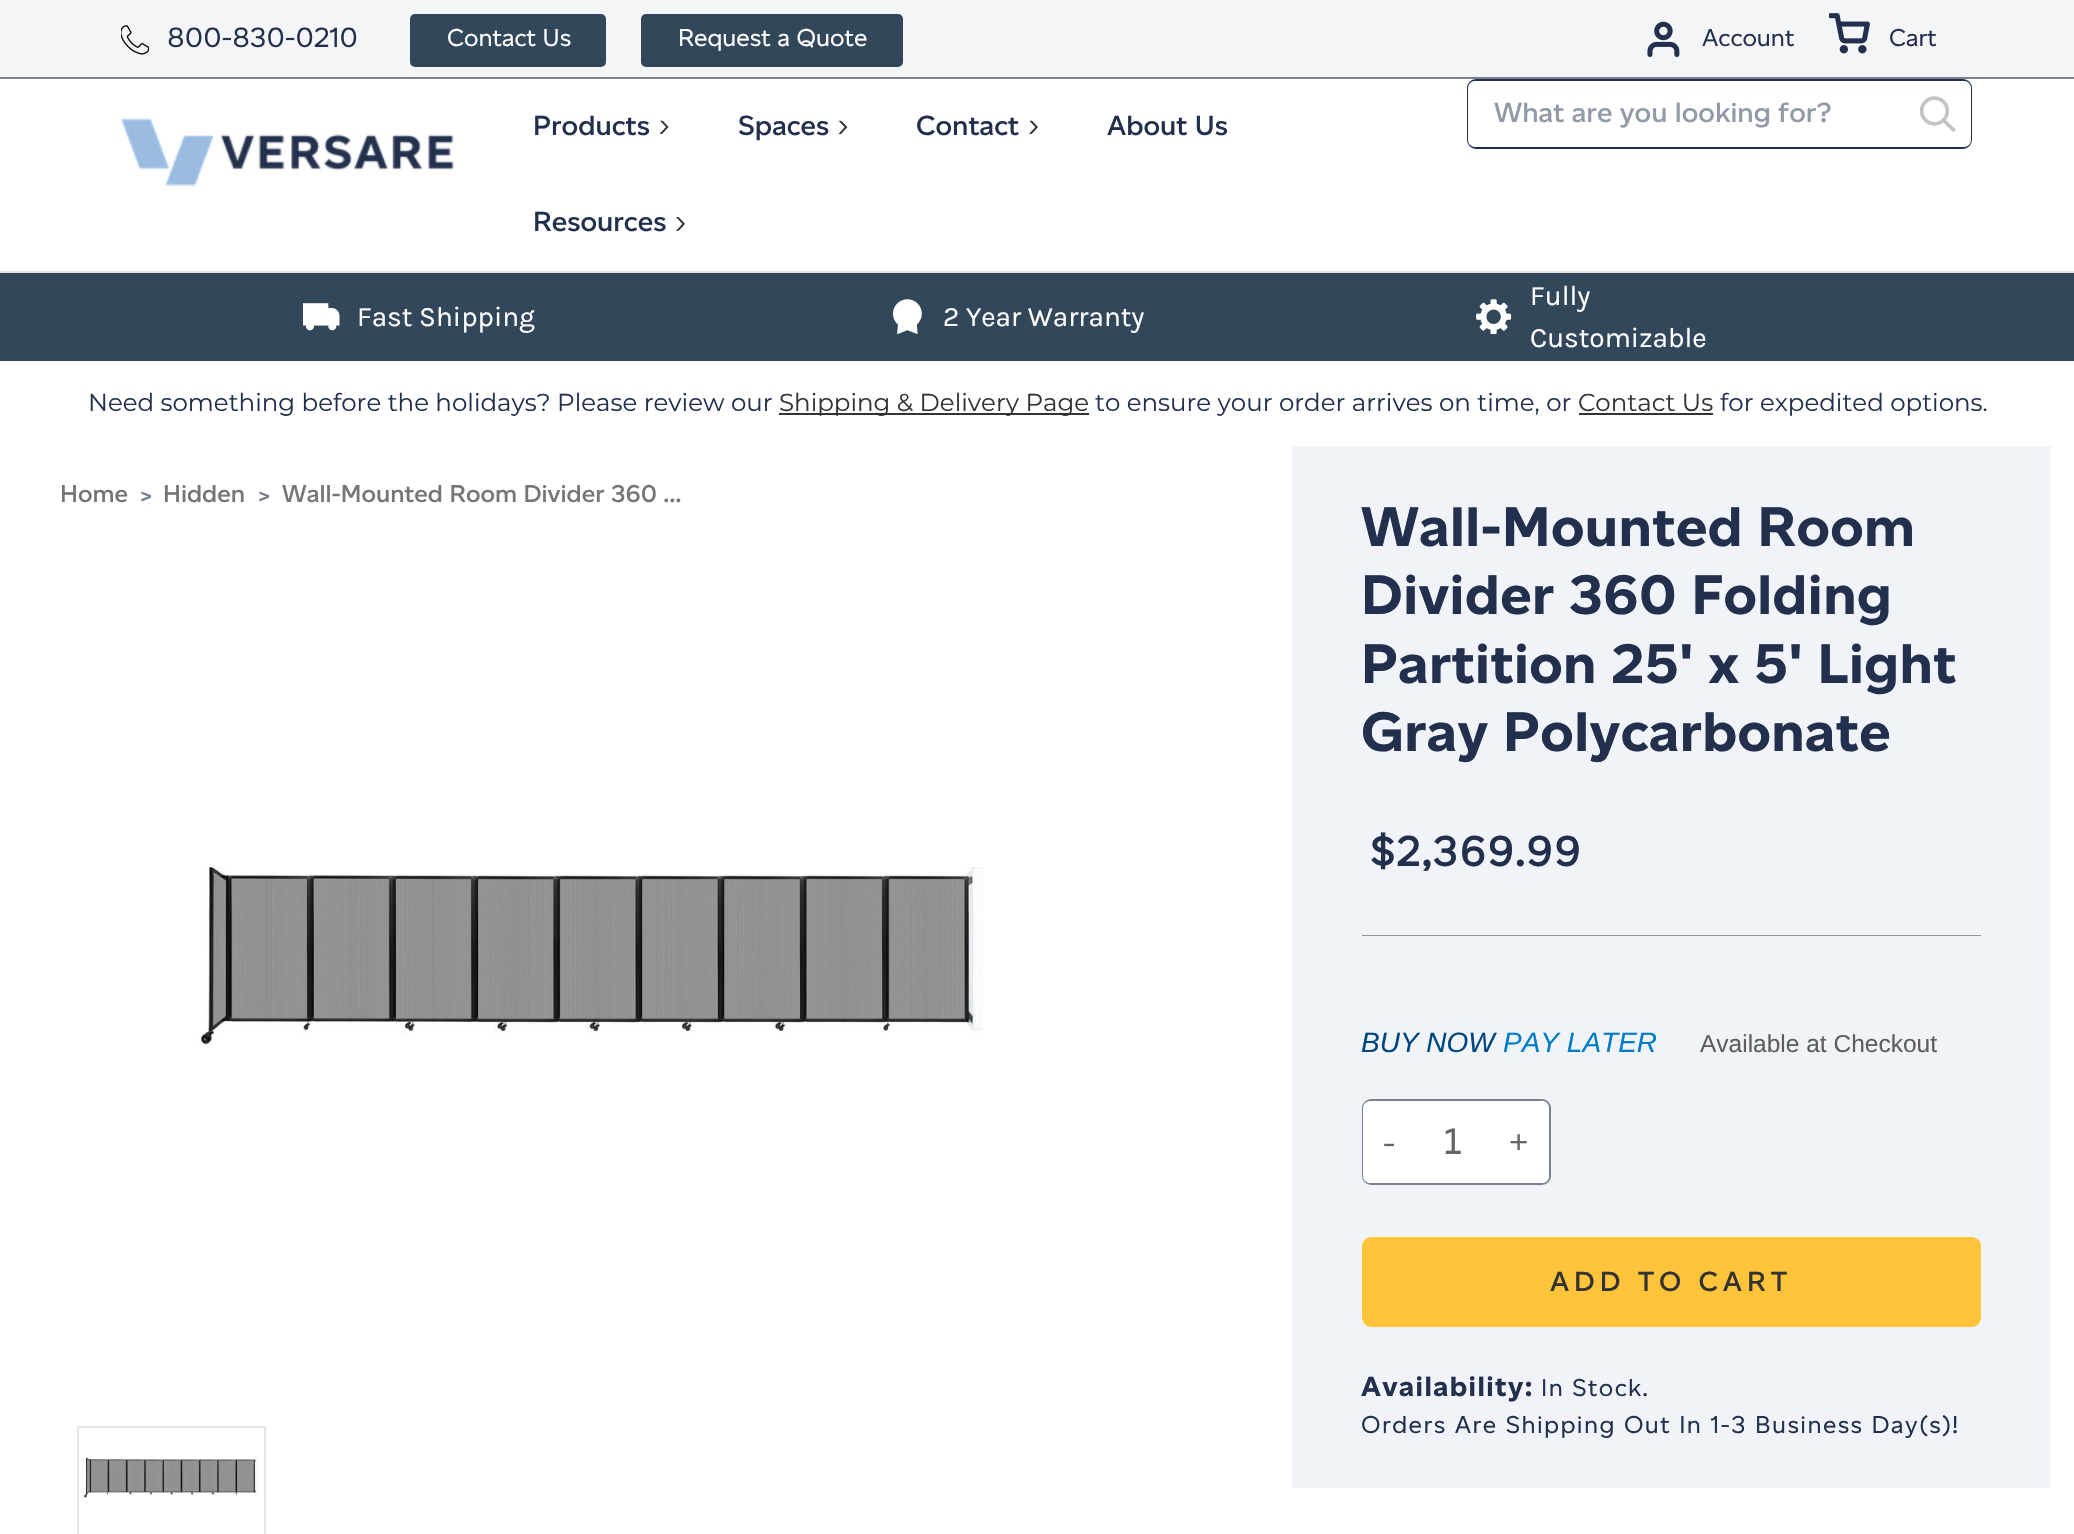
void draw(SkCanvas* canvas) {
    SkPaint paint;
    paint.setAntiAlias(true);
    auto spacedText = [&](const char* s, float x, float y, const SkFont& font, const SkPaint& ink, float letter, float word) {
        std::vector<SkGlyphID> glyphs(font.countText(s, strlen(s), SkTextEncoding::kUTF8));
        std::vector<float> xs(glyphs.size());
        font.textToGlyphs(s, strlen(s), SkTextEncoding::kUTF8, glyphs);
        font.getXPos(glyphs, xs, x);
        float extra = 0;
        for (size_t i = 0; i < glyphs.size(); i++) {
            xs[i] += extra;
            extra += letter + word * (glyphs[i] == font.unicharToGlyph(' '));
        }
        canvas->drawTextBlob(SkTextBlob::MakeFromPosHGlyphs(glyphs, xs, y, font), 0, 0, ink);
    };
    canvas->clear(0xFFFFFFFF);
    paint.setColor(0xFFF4F5F7);
    canvas->drawRect(SkRect::MakeXYWH(0, 0, 2074, 77), paint);
    paint.setColor(0xFF798190);
    canvas->drawRect(SkRect::MakeXYWH(0, 77, 2074, 2), paint);
    canvas->drawImageRect(SkImages::DeferredFromEncodedData(SkData::MakeFromFileName("img1.png")), SkRect::MakeXYWH(121, 25, 28, 30), SkSamplingOptions());
    SkFont font1(fontMgr->matchFamilyStyle("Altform", SkFontStyle::Normal()), 28);
    font1.setSubpixel(true);
    paint.setColor(0xFF222F4D);
    canvas->drawString("800-830-0210", 167, 47, font1, paint);
    paint.setColor(0xFF33475B);
    canvas->drawRoundRect(SkRect::MakeXYWH(410, 14, 196, 53), 5, 5, paint);
    SkFont font2(fontMgr->matchFamilyStyle("Altform", SkFontStyle::Normal()), 24.5f);
    font2.setSubpixel(true);
    paint.setColor(0xFFFFFFFF);
    canvas->drawString("Contact Us", 447, 46, font2, paint);
    paint.setColor(0xFF33475B);
    canvas->drawRoundRect(SkRect::MakeXYWH(641, 14, 262, 53), 5, 5, paint);
    paint.setColor(0xFFFFFFFF);
    canvas->drawString("Request a Quote", 678, 46, font2, paint);
    canvas->drawImageRect(SkImages::DeferredFromEncodedData(SkData::MakeFromFileName("img2.png")), SkRect::MakeXYWH(1647, 21, 33, 36), SkSamplingOptions());
    paint.setColor(0xFF222F4D);
    canvas->drawString("Account", 1702, 46, font2, paint);
    canvas->drawImageRect(SkImages::DeferredFromEncodedData(SkData::MakeFromFileName("img3.png")), SkRect::MakeXYWH(1829, 13, 41, 41), SkSamplingOptions());
    canvas->drawString("Cart", 1889, 46, font2, paint);
    paint.setColor(0xFFE5E5E5);
    canvas->drawRect(SkRect::MakeXYWH(0, 271, 2074, 2), paint);
    canvas->drawImageRect(SkImages::DeferredFromEncodedData(SkData::MakeFromFileName("img4.png")), SkRect::MakeXYWH(120, 118, 334, 69), SkSamplingOptions());
    SkFont font3(fontMgr->matchFamilyStyle("Altform", SkFontStyle(600, SkFontStyle::kNormal_Width, SkFontStyle::kUpright_Slant)), 28);
    font3.setSubpixel(true);
    paint.setColor(0xFF222F4D);
    canvas->drawString("Products", 533, 135, font3, paint);
    canvas->drawImageRect(SkImages::DeferredFromEncodedData(SkData::MakeFromFileName("img5.png")), SkRect::MakeXYWH(660, 120, 9, 14), SkSamplingOptions());
    canvas->drawString("Spaces", 738, 135, font3, paint);
    canvas->drawImageRect(SkImages::DeferredFromEncodedData(SkData::MakeFromFileName("img6.png")), SkRect::MakeXYWH(838, 120, 10, 15), SkSamplingOptions());
    canvas->drawString("Contact", 916, 135, font3, paint);
    canvas->drawImageRect(SkImages::DeferredFromEncodedData(SkData::MakeFromFileName("img7.png")), SkRect::MakeXYWH(1029, 120, 9, 15), SkSamplingOptions());
    canvas->drawString("About Us", 1107, 135, font3, paint);
    canvas->drawString("Resources", 533, 231, font3, paint);
    canvas->drawImageRect(SkImages::DeferredFromEncodedData(SkData::MakeFromFileName("img8.png")), SkRect::MakeXYWH(676, 217, 9, 14), SkSamplingOptions());
    paint.setStyle(SkPaint::kStroke_Style);
    paint.setStrokeWidth(2);
    canvas->drawRoundRect(SkRect::MakeXYWH(1468, 80, 503, 68), 8, 8, paint);
    paint.setStyle(SkPaint::kFill_Style);
    paint.setColor(0xFFFFFFFF);
    canvas->drawRoundRect(SkRect::MakeXYWH(1468, 81, 503, 66), 7, 7, paint);
    paint.setColor(0xFF939AA7);
    canvas->drawString("What are you looking for?", 1494, 122, font3, paint);
    canvas->drawImageRect(SkImages::DeferredFromEncodedData(SkData::MakeFromFileName("img9.png")), SkRect::MakeXYWH(1920, 96, 36, 37), SkSamplingOptions());
    paint.setColor(0xFF33475B);
    canvas->drawRect(SkRect::MakeXYWH(0, 273, 2074, 88), paint);
    canvas->drawImageRect(SkImages::DeferredFromEncodedData(SkData::MakeFromFileName("img10.png")), SkRect::MakeXYWH(303, 303, 37, 28), SkSamplingOptions());
    SkFont font4(fontMgr->matchFamilyStyle("Karla", SkFontStyle::Normal()), 28);
    font4.setSubpixel(true);
    paint.setColor(0xFFFFFFFF);
    canvas->drawString("Fast Shipping", 357, 326, font4, paint);
    canvas->drawImageRect(SkImages::DeferredFromEncodedData(SkData::MakeFromFileName("img11.png")), SkRect::MakeXYWH(893, 299, 29, 35), SkSamplingOptions());
    canvas->drawString("2 Year Warranty", 943, 326, font4, paint);
    canvas->drawImageRect(SkImages::DeferredFromEncodedData(SkData::MakeFromFileName("img12.png")), SkRect::MakeXYWH(1476, 299, 36, 35), SkSamplingOptions());
    canvas->drawString("Fully", 1530, 305, font4, paint);
    canvas->drawString("Customizable", 1530, 347, font4, paint);
    SkFont font5(fontMgr->matchFamilyStyle("Montserrat", SkFontStyle::Normal()), 24.5f);
    font5.setSubpixel(true);
    paint.setColor(0xFF222F4D);
    canvas->drawString("Need something before the holidays? Please review our", 88, 411, font5, paint);
    paint.setColor(0xFF333333);
    canvas->drawRect(SkRect::MakeXYWH(779, 413, 310, 2), paint);
    canvas->drawString("Shipping & Delivery Page", 779, 411, font5, paint);
    paint.setColor(0xFF222F4D);
    canvas->drawString("to ensure your order arrives on time, or", 1095, 411, font5, paint);
    paint.setColor(0xFF333333);
    canvas->drawString("Contact Us", 1578, 411, font5, paint);
    canvas->drawRect(SkRect::MakeXYWH(1579, 413, 134, 2), paint);
    paint.setColor(0xFF222F4D);
    canvas->drawString("for expedited options.", 1720, 411, font5, paint);
    SkFont font6(fontMgr->matchFamilyStyle("Altform", SkFontStyle(600, SkFontStyle::kNormal_Width, SkFontStyle::kUpright_Slant)), 24.5f);
    font6.setSubpixel(true);
    paint.setColor(0xFF757575);
    canvas->drawString("Home", 60, 502, font6, paint);
    paint.setColor(0xFF798190);
    canvas->drawString(">", 140, 504, font6, paint);
    paint.setColor(0xFF757575);
    canvas->drawString("Hidden", 163, 502, font6, paint);
    paint.setColor(0xFF798190);
    canvas->drawString(">", 258, 504, font6, paint);
    paint.setColor(0xFF757575);
    canvas->drawString("Wall-Mounted Room Divider 360 …", 282, 502, font6, paint);
    paint.setColor(0xFFF0F4F8);
    canvas->drawRect(SkRect::MakeXYWH(1292, 446, 759, 1042), paint);
    paint.setColor(0xFF979797);
    canvas->drawRect(SkRect::MakeXYWH(1362, 935, 619, 1), paint);
    SkFont font7(fontMgr->matchFamilyStyle("Altform", SkFontStyle::Bold()), 56);
    font7.setSubpixel(true);
    paint.setColor(0xFF222F4D);
    spacedText("Wall-Mounted Room", 1361, 546, font7, paint, 0.4f, 0);
    spacedText("Divider 360 Folding", 1361, 614, font7, paint, 0.4f, 0);
    spacedText("Partition 25' x 5' Light", 1361, 683, font7, paint, 0.4f, 0);
    spacedText("Gray Polycarbonate", 1361, 751, font7, paint, 0.4f, 0);
    SkFont font8(fontMgr->matchFamilyStyle("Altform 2", SkFontStyle::Bold()), 42);
    font8.setSubpixel(true);
    spacedText("$2,369.99", 1370, 866, font8, paint, 2, 0);
    canvas->drawImageRect(SkImages::DeferredFromEncodedData(SkData::MakeFromFileName("img13.png")), SkRect::MakeXYWH(199, 867, 784, 181), SkSamplingOptions());
    paint.setStyle(SkPaint::kStroke_Style);
    paint.setColor(0xFFE5E5E5);
    canvas->drawRect(SkRect::MakeXYWH(78, 1427, 187, 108), paint);
    canvas->drawImageRect(SkImages::DeferredFromEncodedData(SkData::MakeFromFileName("img14.png")), SkRect::MakeXYWH(83, 1457, 175, 41), SkSamplingOptions());
    SkFont font9(fontMgr->matchFamilyStyle("Liberation Sans", SkFontStyle::Italic()), 28);
    font9.setSubpixel(true);
    paint.setStyle(SkPaint::kFill_Style);
    paint.setColor(0xFF00457F);
    canvas->drawString("BUY NOW", 1361, 1052, font9, paint);
    paint.setColor(0xFF007BC8);
    canvas->drawString("PAY LATER", 1503, 1052, font9, paint);
    SkFont font10(fontMgr->matchFamilyStyle("Liberation Sans", SkFontStyle::Normal()), 24.5f);
    font10.setSubpixel(true);
    paint.setColor(0xFF5E5E5E);
    canvas->drawString("Available at Checkout", 1700, 1052, font10, paint);
    paint.setColor(0xFFFFFFFF);
    canvas->drawRoundRect(SkRect::MakeXYWH(1363, 1100, 187, 84), 8, 8, paint);
    paint.setStyle(SkPaint::kStroke_Style);
    paint.setColor(0xFF798190);
    canvas->drawRoundRect(SkRect::MakeXYWH(1363, 1100, 187, 84), 8, 8, paint);
    paint.setStyle(SkPaint::kFill_Style);
    paint.setColor(0xFFFFFFFF);
    canvas->drawRoundRect(SkRect::MakeXYWH(1363, 1101, 53, 82), 7, 7, paint);
    SkFont font11(fontMgr->matchFamilyStyle("Montserrat", SkFontStyle::Normal()), 37);
    font11.setSubpixel(true);
    paint.setColor(0xFF666666);
    canvas->drawString("-", 1382, 1155, font11, paint);
    SkFont font12(fontMgr->matchFamilyStyle("Abel", SkFontStyle::Bold()), 35);
    font12.setSubpixel(true);
    canvas->drawString("1", 1443, 1154, font12, paint);
    paint.setColor(0xFFFFFFFF);
    canvas->drawRoundRect(SkRect::MakeXYWH(1489, 1101, 60, 82), 7, 7, paint);
    paint.setColor(0xFF666666);
    canvas->drawString("+", 1508, 1155, font11, paint);
    paint.setColor(0xFFFFC439);
    canvas->drawRoundRect(SkRect::MakeXYWH(1363, 1238, 617, 88), 8, 8, paint);
    paint.setStyle(SkPaint::kStroke_Style);
    canvas->drawRoundRect(SkRect::MakeXYWH(1363, 1238, 617, 88), 8, 8, paint);
    paint.setStyle(SkPaint::kFill_Style);
    paint.setColor(0xFF333333);
    spacedText("ADD TO CART", 1550, 1291, font3, paint, 4.9f, 0);
    SkFont font13(fontMgr->matchFamilyStyle("Altform", SkFontStyle::Bold()), 28);
    font13.setSubpixel(true);
    paint.setColor(0xFF222F4D);
    spacedText("Availability:", 1361, 1396, font13, paint, 1.4f, 0);
    spacedText("In Stock.", 1541, 1396, font2, paint, 1.4f, 0);
    spacedText("Orders Are Shipping Out In 1-3 Business Day(s)!", 1361, 1433, font2, paint, 1.4f, 0);
}
